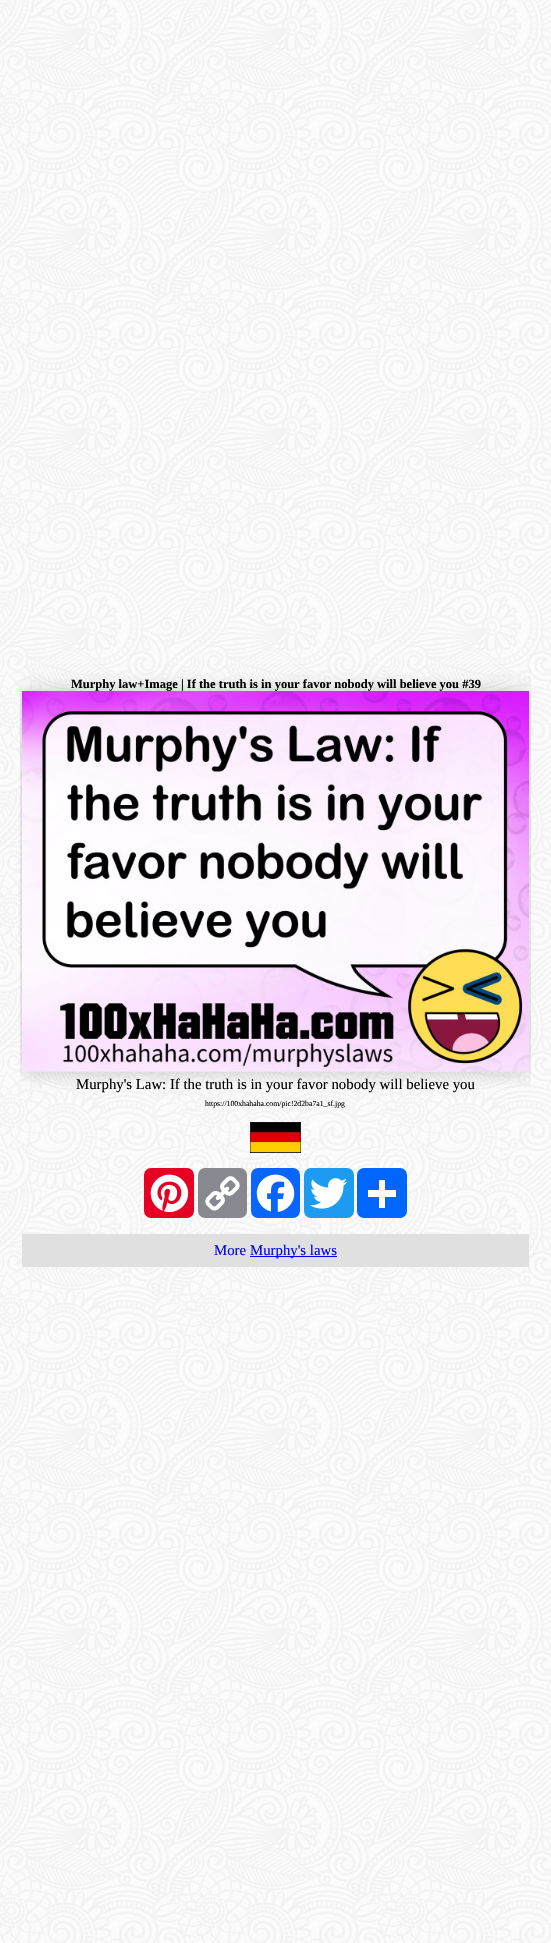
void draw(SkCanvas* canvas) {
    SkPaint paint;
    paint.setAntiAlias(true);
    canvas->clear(0xFFFFFFFF);
    canvas->drawImageRect(SkImages::DeferredFromEncodedData(SkData::MakeFromFileName("img1.png")), SkRect::MakeXYWH(0, 0, 551, 1943), SkSamplingOptions());
    SkFont font1(fontMgr->matchFamilyStyle("Liberation Serif", SkFontStyle::Bold()), 12.5f);
    font1.setSubpixel(true);
    paint.setColor(0xFF000000);
    canvas->drawString("Murphy law+Image | If the truth is in your favor nobody will believe you #39", 71, 688, font1, paint);
    canvas->save();
    canvas->clipRect(SkRect::MakeXYWH(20, 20, 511, 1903));
    paint.setColor(0x33000000);
    paint.setMaskFilter(SkMaskFilter::MakeBlur(kNormal_SkBlurStyle, 9));
    canvas->drawRect(SkRect::MakeXYWH(22, 691, 507, 381), paint);
    paint.setMaskFilter(nullptr);
    canvas->restore();
    canvas->drawImageRect(SkImages::DeferredFromEncodedData(SkData::MakeFromFileName("img2.png")), SkRect::MakeXYWH(22, 691, 507, 381), SkSamplingOptions());
    SkFont font2(fontMgr->matchFamilyStyle("Liberation Serif", SkFontStyle::Normal()), 14.8f);
    font2.setSubpixel(true);
    paint.setColor(0xFF000000);
    canvas->drawString("Murphy's Law: If the truth is in your favor nobody will believe you", 76, 1089, font2, paint);
    SkFont font3(fontMgr->matchFamilyStyle("Liberation Serif", SkFontStyle::Normal()), 7.75f);
    font3.setSubpixel(true);
    canvas->drawString("https://100xhahaha.com/pic!2d2ba7a1_sf.jpg", 205, 1106, font3, paint);
    paint.setStyle(SkPaint::kStroke_Style);
    paint.setStrokeWidth(0.8f);
    canvas->drawRect(SkRect::MakeXYWH(250.4f, 1122.4f, 50.2f, 30.2f), paint);
    canvas->drawImageRect(SkImages::DeferredFromEncodedData(SkData::MakeFromFileName("img3.png")), SkRect::MakeXYWH(250, 1122, 51, 30), SkSamplingOptions());
    paint.setStyle(SkPaint::kFill_Style);
    paint.setColor(0xFFE60023);
    canvas->drawRoundRect(SkRect::MakeXYWH(144, 1168, 50, 50), 7, 7, paint);
    canvas->drawImageRect(SkImages::DeferredFromEncodedData(SkData::MakeFromFileName("img4.png")), SkRect::MakeXYWH(150, 1174, 39, 39), SkSamplingOptions());
    paint.setColor(0xFF888990);
    canvas->drawRoundRect(SkRect::MakeXYWH(198, 1168, 49, 50), 7, 7, paint);
    canvas->drawImageRect(SkImages::DeferredFromEncodedData(SkData::MakeFromFileName("img5.png")), SkRect::MakeXYWH(205, 1176, 35, 35), SkSamplingOptions());
    paint.setColor(0xFF0866FF);
    canvas->drawRoundRect(SkRect::MakeXYWH(251, 1168, 49, 50), 7, 7, paint);
    canvas->drawImageRect(SkImages::DeferredFromEncodedData(SkData::MakeFromFileName("img6.png")), SkRect::MakeXYWH(256, 1174, 39, 38), SkSamplingOptions());
    paint.setColor(0xFF1D9BF0);
    canvas->drawRoundRect(SkRect::MakeXYWH(304, 1168, 50, 50), 7, 7, paint);
    canvas->drawImageRect(SkImages::DeferredFromEncodedData(SkData::MakeFromFileName("img7.png")), SkRect::MakeXYWH(310, 1178, 38, 31), SkSamplingOptions());
    paint.setColor(0xFF0166FF);
    canvas->drawRoundRect(SkRect::MakeXYWH(357, 1168, 50, 50), 7, 7, paint);
    paint.setColor(0xFFFFFFFF);
    canvas->drawRect(SkRect::MakeXYWH(379, 1180, 6, 28), paint);
    canvas->drawRect(SkRect::MakeXYWH(368, 1190, 28, 7), paint);
    paint.setColor(0xFFE0E0E0);
    canvas->drawRect(SkRect::MakeXYWH(22, 1234, 507, 33), paint);
    paint.setColor(0xFF0000EE);
    canvas->drawString("More", 214, 1255, font2, paint);
    canvas->drawRect(SkRect::MakeXYWH(250, 1256, 87, 1), paint);
    canvas->drawString("Murphy's laws", 250, 1255, font2, paint);
}
